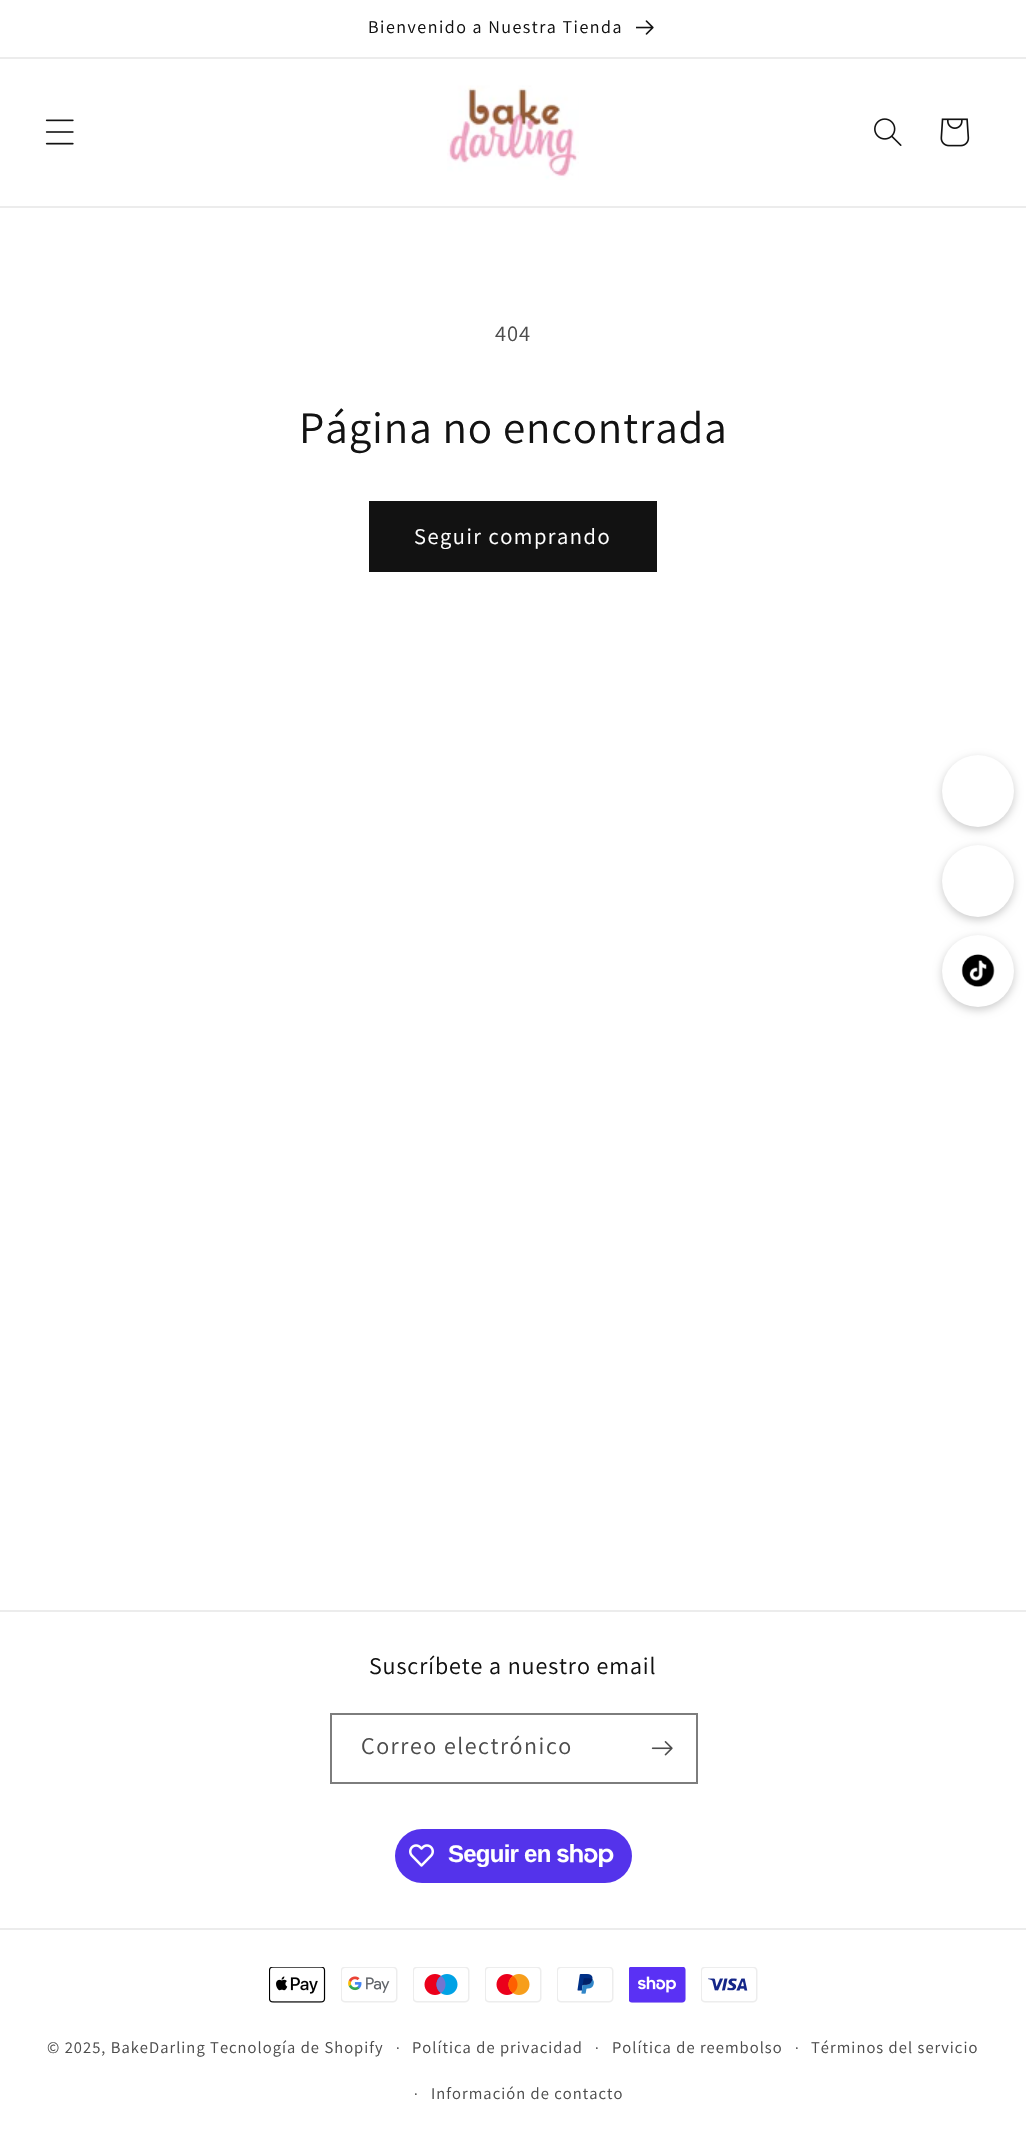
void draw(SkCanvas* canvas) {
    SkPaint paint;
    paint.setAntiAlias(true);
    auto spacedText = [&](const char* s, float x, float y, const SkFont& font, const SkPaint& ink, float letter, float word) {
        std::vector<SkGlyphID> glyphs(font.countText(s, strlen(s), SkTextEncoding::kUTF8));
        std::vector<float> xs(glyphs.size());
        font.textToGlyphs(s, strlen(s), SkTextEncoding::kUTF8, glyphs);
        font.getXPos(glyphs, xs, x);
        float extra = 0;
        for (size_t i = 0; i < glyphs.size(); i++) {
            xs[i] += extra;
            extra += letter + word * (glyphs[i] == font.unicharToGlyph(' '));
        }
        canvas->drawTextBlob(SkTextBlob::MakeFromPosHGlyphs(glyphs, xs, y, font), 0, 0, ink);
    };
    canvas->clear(0xFFFFFFFF);
    paint.setColor(0xFFECECEC);
    canvas->drawRect(SkRect::MakeXYWH(0, 57, 1026, 2), paint);
    SkFont font1(fontMgr->matchFamilyStyle("Assistant", SkFontStyle::Normal()), 18);
    font1.setSubpixel(true);
    paint.setColor(0xFF121212);
    spacedText("Bienvenido a Nuestra Tienda", 368, 33, font1, paint, 1.5f, 0);
    canvas->drawImageRect(SkImages::DeferredFromEncodedData(SkData::MakeFromFileName("img1.png")), SkRect::MakeXYWH(636, 20, 18, 15), SkSamplingOptions());
    paint.setColor(0xFFECECEC);
    canvas->drawRect(SkRect::MakeXYWH(0, 206, 1026, 2), paint);
    canvas->drawImageRect(SkImages::DeferredFromEncodedData(SkData::MakeFromFileName("img2.png")), SkRect::MakeXYWH(45, 119, 29, 26), SkSamplingOptions());
    canvas->drawImageRect(SkImages::DeferredFromEncodedData(SkData::MakeFromFileName("img3.png")), SkRect::MakeXYWH(447, 85, 132, 95), SkSamplingOptions());
    canvas->drawImageRect(SkImages::DeferredFromEncodedData(SkData::MakeFromFileName("img4.png")), SkRect::MakeXYWH(874, 118, 28, 28), SkSamplingOptions());
    canvas->drawImageRect(SkImages::DeferredFromEncodedData(SkData::MakeFromFileName("img5.png")), SkRect::MakeXYWH(940, 118, 30, 29), SkSamplingOptions());
    SkFont font2(fontMgr->matchFamilyStyle("Assistant", SkFontStyle::Normal()), 22.5f);
    font2.setSubpixel(true);
    paint.setColor(0xFF4D4D4D);
    spacedText("404", 495, 341, font2, paint, 0.9f, 0);
    SkFont font3(fontMgr->matchFamilyStyle("Assistant", SkFontStyle::Normal()), 45);
    font3.setSubpixel(true);
    paint.setColor(0xFF121212);
    spacedText("Página no encontrada", 299, 443, font3, paint, 0.9f, 0);
    canvas->drawRect(SkRect::MakeXYWH(369, 501, 288, 71), paint);
    paint.setColor(0xFFFFFFFF);
    spacedText("Seguir comprando", 414, 544, font2, paint, 1.5f, 0);
    paint.setColor(0x33000000);
    paint.setMaskFilter(SkMaskFilter::MakeBlur(kNormal_SkBlurStyle, 4.5f));
    canvas->drawRoundRect(SkRect::MakeXYWH(942, 758, 72, 72), 36, 36, paint);
    paint.setMaskFilter(nullptr);
    paint.setColor(0xFFFFFFFF);
    canvas->drawCircle(978, 791, 36, paint);
    paint.setColor(0x33000000);
    paint.setMaskFilter(SkMaskFilter::MakeBlur(kNormal_SkBlurStyle, 4.5f));
    canvas->drawRoundRect(SkRect::MakeXYWH(942, 848, 72, 72), 36, 36, paint);
    paint.setMaskFilter(nullptr);
    paint.setColor(0xFFFFFFFF);
    canvas->drawCircle(978, 881, 36, paint);
    paint.setColor(0x33000000);
    paint.setMaskFilter(SkMaskFilter::MakeBlur(kNormal_SkBlurStyle, 4.5f));
    canvas->drawRoundRect(SkRect::MakeXYWH(942, 938, 72, 72), 36, 36, paint);
    paint.setMaskFilter(nullptr);
    paint.setColor(0xFFFFFFFF);
    canvas->drawCircle(978, 971, 36, paint);
    canvas->drawImageRect(SkImages::DeferredFromEncodedData(SkData::MakeFromFileName("img6.png")), SkRect::MakeXYWH(961, 954, 34, 33), SkSamplingOptions());
    paint.setColor(0xFFECECEC);
    canvas->drawRect(SkRect::MakeXYWH(0, 1610, 1026, 2), paint);
    SkFont font4(fontMgr->matchFamilyStyle("Assistant", SkFontStyle::Normal()), 24);
    font4.setSubpixel(true);
    paint.setColor(0xFF121212);
    spacedText("Suscríbete a nuestro email", 369, 1674, font4, paint, 0.9f, 0);
    paint.setStyle(SkPaint::kStroke_Style);
    paint.setStrokeWidth(2);
    paint.setColor(0xFF7D7D7D);
    canvas->drawRect(SkRect::MakeXYWH(331, 1714, 366, 69), paint);
    paint.setStyle(SkPaint::kFill_Style);
    paint.setColor(0xFF4D4D4D);
    spacedText("Correo electrónico", 361, 1754, font4, paint, 1.5f, 0);
    canvas->drawImageRect(SkImages::DeferredFromEncodedData(SkData::MakeFromFileName("img7.png")), SkRect::MakeXYWH(651, 1741, 22, 15), SkSamplingOptions());
    paint.setColor(0xFF5433EB);
    canvas->drawRoundRect(SkRect::MakeXYWH(395, 1829, 237, 54), 27, 27, paint);
    canvas->drawImageRect(SkImages::DeferredFromEncodedData(SkData::MakeFromFileName("img8.png")), SkRect::MakeXYWH(409, 1844, 25, 23), SkSamplingOptions());
    SkFont font5(fontMgr->matchFamilyStyle("Liberation Sans", SkFontStyle::Bold()), 24);
    font5.setSubpixel(true);
    paint.setColor(0xFFFFFFFF);
    spacedText("Seguir en", 448, 1862, font5, paint, -0.75f, 0);
    canvas->drawImageRect(SkImages::DeferredFromEncodedData(SkData::MakeFromFileName("img9.png")), SkRect::MakeXYWH(557, 1844, 57, 23), SkSamplingOptions());
    paint.setColor(0xFFECECEC);
    canvas->drawRect(SkRect::MakeXYWH(0, 1928, 1026, 2), paint);
    canvas->drawImageRect(SkImages::DeferredFromEncodedData(SkData::MakeFromFileName("img10.png")), SkRect::MakeXYWH(269, 1967, 57, 36), SkSamplingOptions());
    canvas->drawImageRect(SkImages::DeferredFromEncodedData(SkData::MakeFromFileName("img11.png")), SkRect::MakeXYWH(341, 1967, 57, 36), SkSamplingOptions());
    canvas->drawImageRect(SkImages::DeferredFromEncodedData(SkData::MakeFromFileName("img12.png")), SkRect::MakeXYWH(413, 1967, 57, 36), SkSamplingOptions());
    canvas->drawImageRect(SkImages::DeferredFromEncodedData(SkData::MakeFromFileName("img13.png")), SkRect::MakeXYWH(485, 1967, 57, 36), SkSamplingOptions());
    canvas->drawImageRect(SkImages::DeferredFromEncodedData(SkData::MakeFromFileName("img14.png")), SkRect::MakeXYWH(557, 1967, 57, 36), SkSamplingOptions());
    canvas->drawImageRect(SkImages::DeferredFromEncodedData(SkData::MakeFromFileName("img15.png")), SkRect::MakeXYWH(629, 1967, 57, 36), SkSamplingOptions());
    canvas->drawImageRect(SkImages::DeferredFromEncodedData(SkData::MakeFromFileName("img16.png")), SkRect::MakeXYWH(701, 1967, 57, 36), SkSamplingOptions());
    SkFont font6(fontMgr->matchFamilyStyle("Assistant", SkFontStyle::Normal()), 16.5f);
    font6.setSubpixel(true);
    paint.setColor(0xFF4D4D4D);
    spacedText("© 2025, BakeDarling Tecnología de Shopify", 47, 2053, font6, paint, 1.05f, 0);
    SkFont font7(fontMgr->matchFamilyStyle("Assistant", SkFontStyle::Normal()), 15);
    font7.setSubpixel(true);
    spacedText("·", 396, 2053, font7, paint, 1.05f, 0);
    spacedText("Política de privacidad", 412, 2053, font6, paint, 1.05f, 0);
    spacedText("·", 595, 2053, font7, paint, 1.05f, 0);
    spacedText("Política de reembolso", 612, 2053, font6, paint, 1.05f, 0);
    spacedText("·", 795, 2053, font7, paint, 1.05f, 0);
    spacedText("Términos del servicio", 811, 2053, font6, paint, 1.05f, 0);
    spacedText("·", 414, 2099, font7, paint, 1.05f, 0);
    spacedText("Información de contacto", 431, 2099, font6, paint, 1.05f, 0);
}
